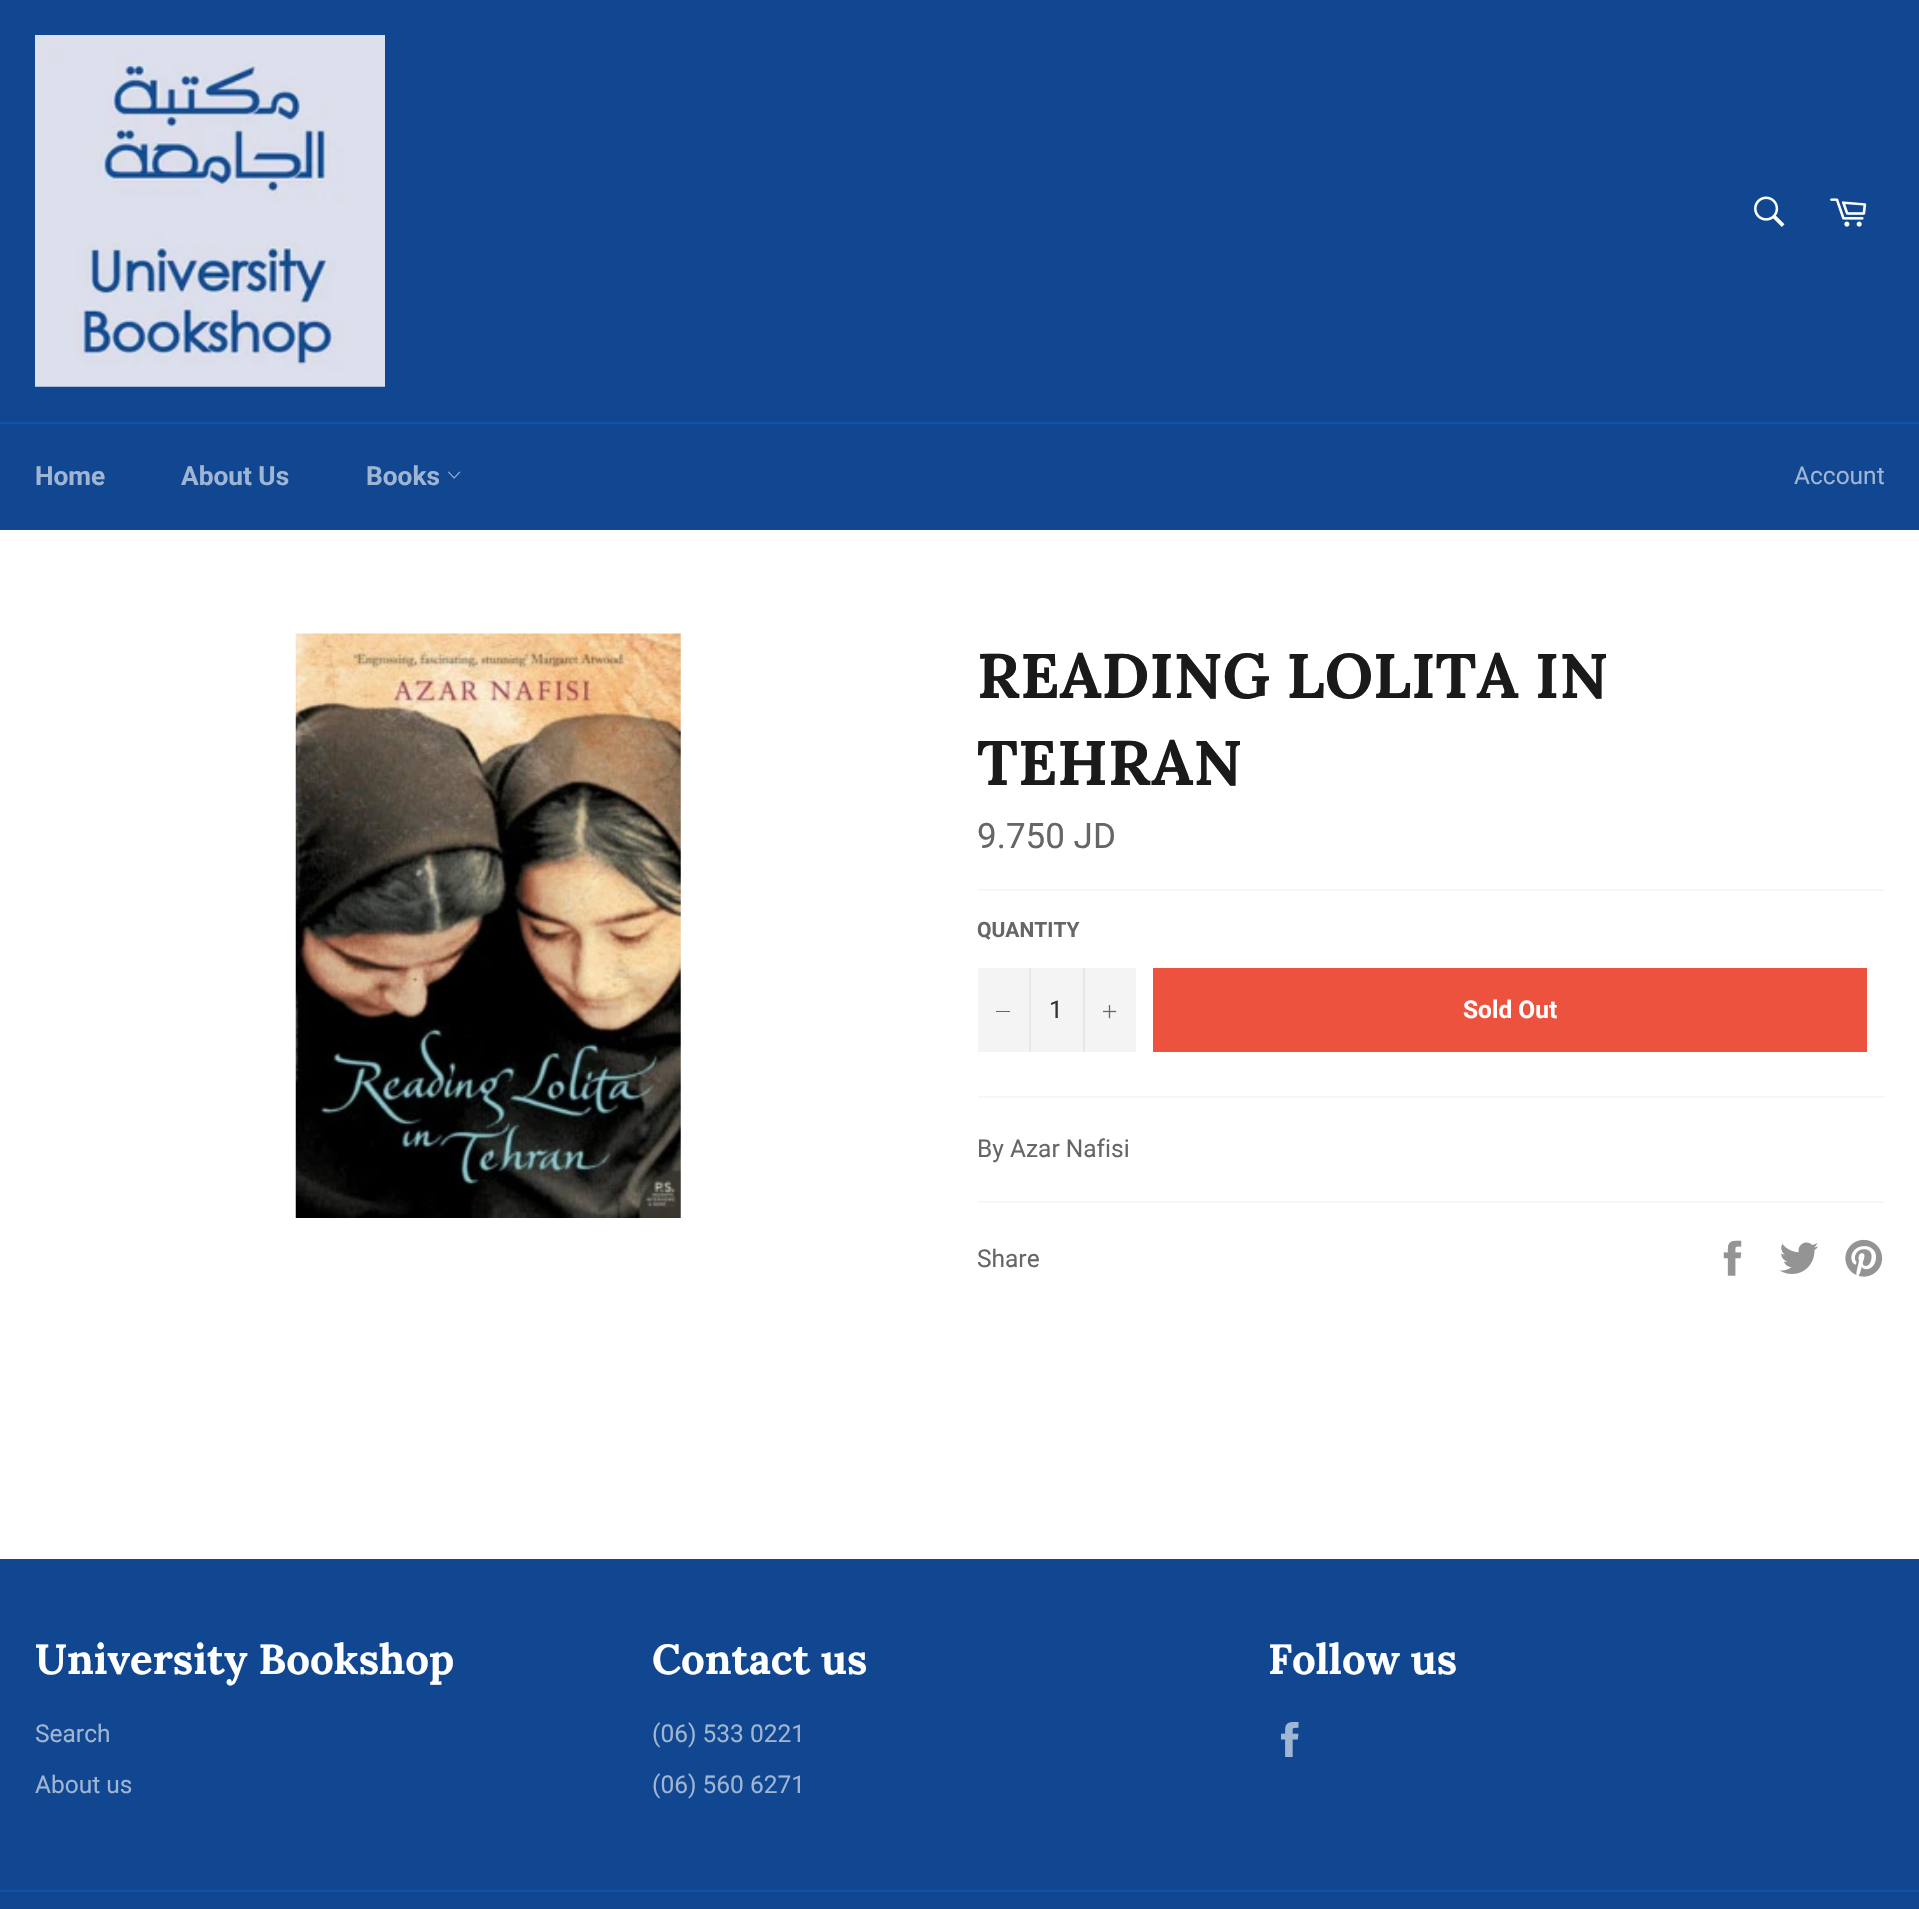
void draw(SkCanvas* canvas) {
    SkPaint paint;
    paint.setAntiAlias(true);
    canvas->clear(0xFF104790);
    canvas->drawImageRect(SkImages::DeferredFromEncodedData(SkData::MakeFromFileName("img1.png")), SkRect::MakeXYWH(35, 35, 350, 352), SkSamplingOptions());
    canvas->drawImageRect(SkImages::DeferredFromEncodedData(SkData::MakeFromFileName("img2.png")), SkRect::MakeXYWH(1754, 196, 31, 31), SkSamplingOptions());
    canvas->drawImageRect(SkImages::DeferredFromEncodedData(SkData::MakeFromFileName("img3.png")), SkRect::MakeXYWH(1830, 198, 37, 29), SkSamplingOptions());
    paint.setColor(0xFF1352A7);
    canvas->drawRect(SkRect::MakeXYWH(0, 422, 1919, 2), paint);
    SkFont font1(fontMgr->matchFamilyStyle("Roboto", SkFontStyle::Bold()), 26.25f);
    font1.setSubpixel(true);
    paint.setColor(0xFF9FB5D3);
    canvas->drawString("Home", 35, 485, font1, paint);
    canvas->drawString("About Us", 181, 485, font1, paint);
    canvas->drawString("Books", 366, 485, font1, paint);
    canvas->drawImageRect(SkImages::DeferredFromEncodedData(SkData::MakeFromFileName("img4.png")), SkRect::MakeXYWH(448, 471, 13, 8), SkSamplingOptions());
    SkFont font2(fontMgr->matchFamilyStyle("Roboto", SkFontStyle::Normal()), 24.5f);
    font2.setSubpixel(true);
    canvas->drawString("Account", 1794, 484, font2, paint);
    paint.setColor(0xFFFFFFFF);
    canvas->drawRect(SkRect::MakeXYWH(0, 530, 1919, 1029), paint);
    canvas->drawImageRect(SkImages::DeferredFromEncodedData(SkData::MakeFromFileName("img5.png")), SkRect::MakeXYWH(295, 633, 386, 585), SkSamplingOptions());
    SkFont font3(fontMgr->matchFamilyStyle("Lora", SkFontStyle::Bold()), 63);
    font3.setSubpixel(true);
    paint.setColor(0xFF1A1A1A);
    canvas->drawString("READING LOLITA IN", 977, 698, font3, paint);
    canvas->drawString("TEHRAN", 977, 785, font3, paint);
    SkFont font4(fontMgr->matchFamilyStyle("Roboto", SkFontStyle::Normal()), 35);
    font4.setSubpixel(true);
    paint.setColor(0xFF666666);
    canvas->drawString("9.750 JD", 977, 848, font4, paint);
    paint.setColor(0xFFF7F7F7);
    canvas->drawRect(SkRect::MakeXYWH(978, 889, 907, 2), paint);
    SkFont font5(fontMgr->matchFamilyStyle("Roboto", SkFontStyle::Bold()), 21);
    font5.setSubpixel(true);
    paint.setColor(0xFF666666);
    canvas->drawString("QUANTITY", 977, 937, font5, paint);
    paint.setColor(0xFFF4F4F4);
    canvas->drawRect(SkRect::MakeXYWH(978, 968, 158, 84), paint);
    paint.setColor(0xFFE7E7E7);
    canvas->drawRect(SkRect::MakeXYWH(1029, 968, 2, 84), paint);
    paint.setColor(0xFF666666);
    canvas->drawRect(SkRect::MakeXYWH(996, 1011, 14, 1), paint);
    paint.setColor(0xFF333333);
    canvas->drawString("1", 1049, 1018, font2, paint);
    paint.setColor(0xFFE7E7E7);
    canvas->drawRect(SkRect::MakeXYWH(1083, 968, 2, 84), paint);
    canvas->drawImageRect(SkImages::DeferredFromEncodedData(SkData::MakeFromFileName("img6.png")), SkRect::MakeXYWH(1103, 1005, 14, 14), SkSamplingOptions());
    paint.setColor(0xFFEC523E);
    canvas->drawRect(SkRect::MakeXYWH(1153, 968, 714, 84), paint);
    SkFont font6(fontMgr->matchFamilyStyle("Roboto", SkFontStyle::Bold()), 24.5f);
    font6.setSubpixel(true);
    paint.setColor(0xFFFFFFFF);
    canvas->drawString("Sold Out", 1463, 1018, font6, paint);
    paint.setColor(0xFFF7F7F7);
    canvas->drawRect(SkRect::MakeXYWH(978, 1096, 907, 2), paint);
    paint.setColor(0xFF666666);
    canvas->drawString("By Azar Nafisi", 977, 1157, font2, paint);
    paint.setColor(0xFFF7F7F7);
    canvas->drawRect(SkRect::MakeXYWH(978, 1201, 907, 2), paint);
    paint.setColor(0xFF666666);
    canvas->drawString("Share", 977, 1267, font2, paint);
    canvas->drawImageRect(SkImages::DeferredFromEncodedData(SkData::MakeFromFileName("img7.png")), SkRect::MakeXYWH(1723, 1240, 19, 36), SkSamplingOptions());
    canvas->drawImageRect(SkImages::DeferredFromEncodedData(SkData::MakeFromFileName("img8.png")), SkRect::MakeXYWH(1780, 1242, 39, 32), SkSamplingOptions());
    canvas->drawImageRect(SkImages::DeferredFromEncodedData(SkData::MakeFromFileName("img9.png")), SkRect::MakeXYWH(1845, 1239, 38, 38), SkSamplingOptions());
    SkFont font7(fontMgr->matchFamilyStyle("Lora", SkFontStyle::Bold()), 42);
    font7.setSubpixel(true);
    paint.setColor(0xFFFFFFFF);
    canvas->drawString("University Bookshop", 35, 1674, font7, paint);
    paint.setColor(0xFF9FB5D3);
    canvas->drawString("Search", 35, 1742, font2, paint);
    canvas->drawString("About us", 35, 1793, font2, paint);
    paint.setColor(0xFFFFFFFF);
    canvas->drawString("Contact us", 652, 1674, font7, paint);
    paint.setColor(0xFF9FB5D3);
    canvas->drawString("(06) 533 0221", 652, 1742, font2, paint);
    canvas->drawString("(06) 560 6271", 652, 1793, font2, paint);
    paint.setColor(0xFFFFFFFF);
    canvas->drawString("Follow us", 1268, 1674, font7, paint);
    canvas->drawImageRect(SkImages::DeferredFromEncodedData(SkData::MakeFromFileName("img10.png")), SkRect::MakeXYWH(1281, 1722, 18, 35), SkSamplingOptions());
    paint.setColor(0xFF1352A7);
    canvas->drawRect(SkRect::MakeXYWH(0, 1890, 1919, 2), paint);
}
